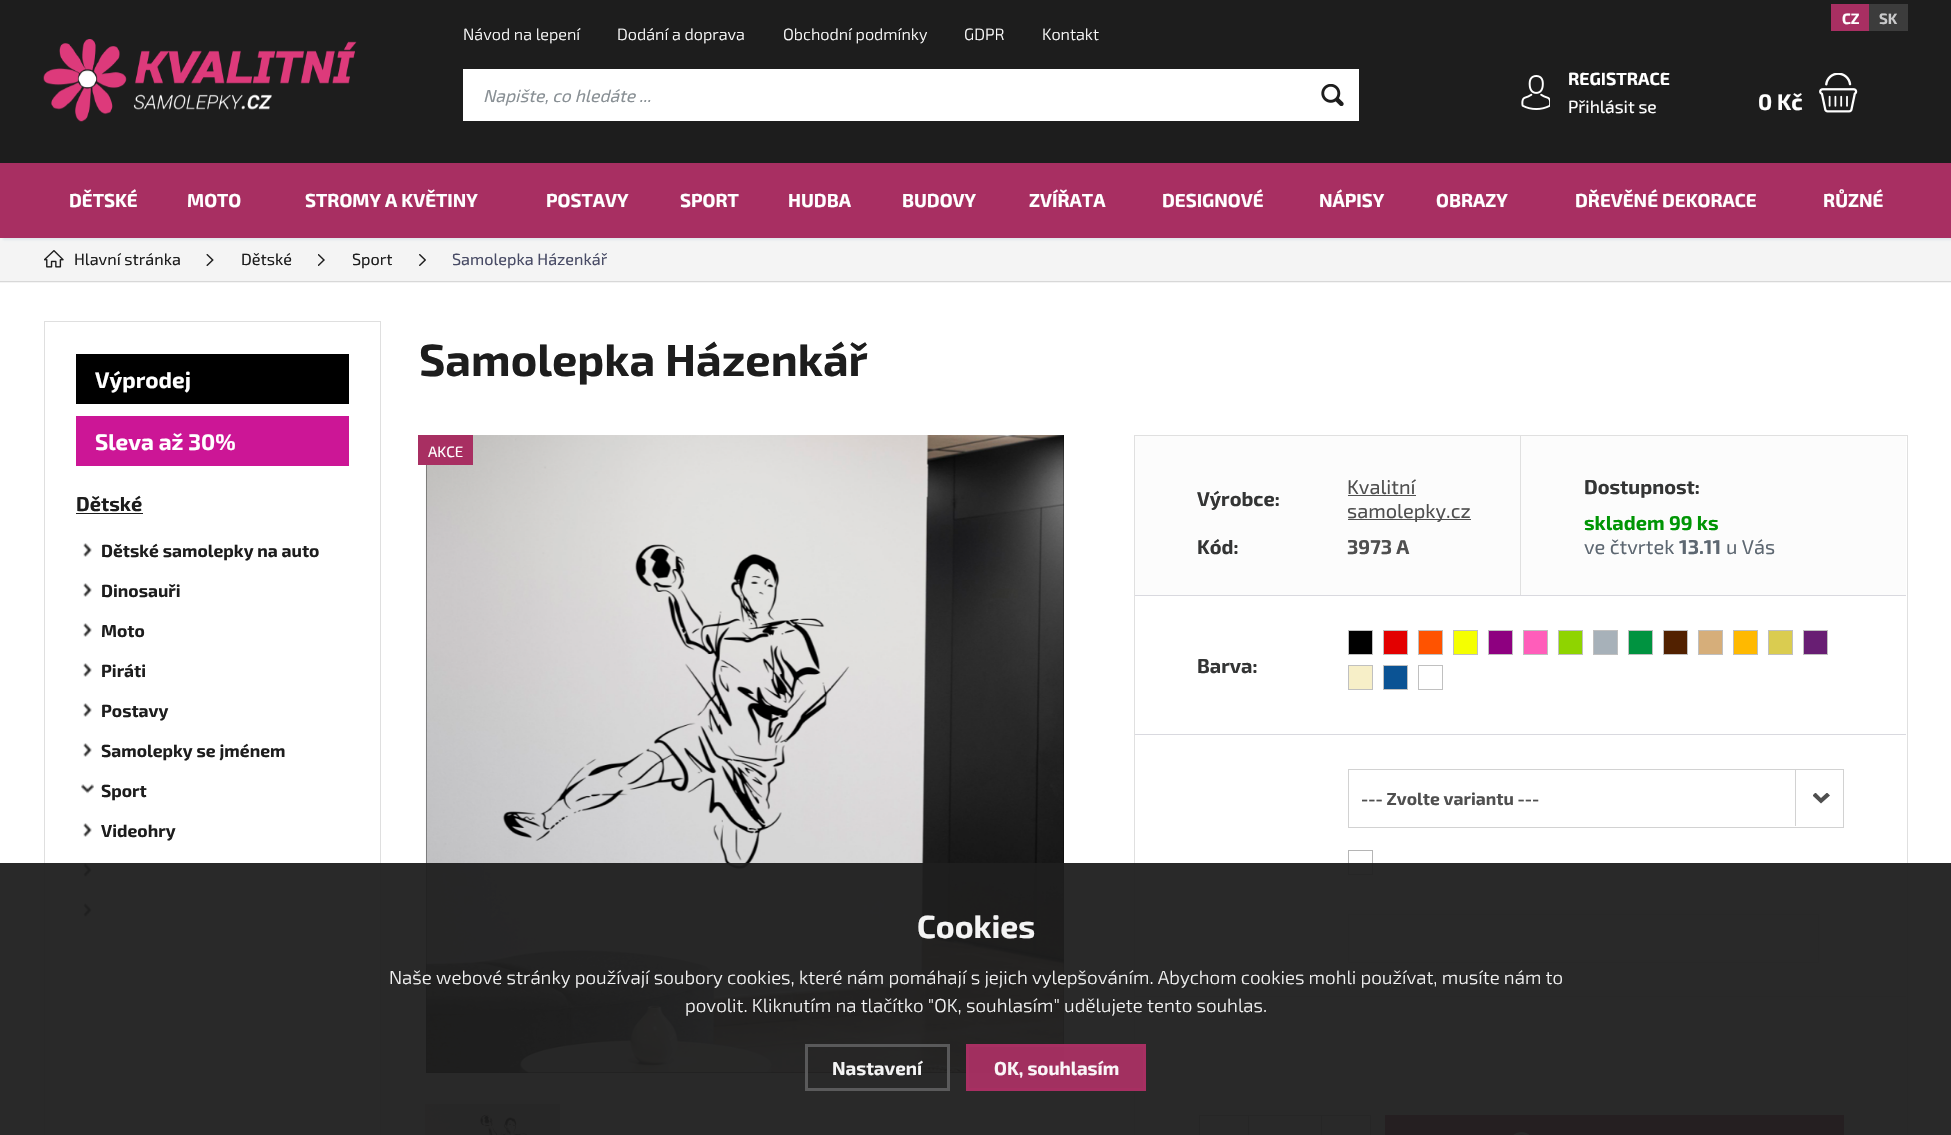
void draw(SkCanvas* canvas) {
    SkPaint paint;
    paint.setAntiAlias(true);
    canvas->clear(0xFFFFFFFF);
    paint.setColor(0xFFF4F4F4);
    canvas->drawRect(SkRect::MakeXYWH(0, 238, 1951, 45), paint);
    paint.setColor(0x14004A81);
    paint.setMaskFilter(SkMaskFilter::MakeBlur(kNormal_SkBlurStyle, 1));
    canvas->drawRect(SkRect::MakeXYWH(3, 3, 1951, 237), paint);
    paint.setMaskFilter(nullptr);
    paint.setColor(0xFF1D1D1D);
    canvas->drawRect(SkRect::MakeXYWH(0, 0, 1951, 163), paint);
    paint.setColor(0xFFA82F62);
    canvas->drawRect(SkRect::MakeXYWH(1831, 4, 38, 27), paint);
    SkFont font1(fontMgr->matchFamilyStyle("Exo 2", SkFontStyle::Bold()), 15);
    font1.setSubpixel(true);
    paint.setColor(0xFFFFFFFF);
    canvas->drawString("CZ", 1842, 24, font1, paint);
    paint.setColor(0xFF3C3C3C);
    canvas->drawRect(SkRect::MakeXYWH(1869, 4, 39, 27), paint);
    paint.setColor(0xFFCACACB);
    canvas->drawString("SK", 1879, 24, font1, paint);
    canvas->drawImageRect(SkImages::DeferredFromEncodedData(SkData::MakeFromFileName("img1.png")), SkRect::MakeXYWH(43, 39, 314, 83), SkSamplingOptions());
    SkFont font2(fontMgr->matchFamilyStyle("Exo 2", SkFontStyle(300, SkFontStyle::kNormal_Width, SkFontStyle::kUpright_Slant)), 16.25f);
    font2.setSubpixel(true);
    paint.setColor(0xFFFFFFFF);
    canvas->drawString("Návod na lepení", 463, 40, font2, paint);
    canvas->drawString("Dodání a doprava", 617, 40, font2, paint);
    canvas->drawString("Obchodní podmínky", 783, 40, font2, paint);
    canvas->drawString("GDPR", 964, 40, font2, paint);
    canvas->drawString("Kontakt", 1042, 40, font2, paint);
    canvas->drawRect(SkRect::MakeXYWH(463, 69, 896, 52), paint);
    SkFont font3(fontMgr->matchFamilyStyle("Exo 2", SkFontStyle::Italic()), 17.5f);
    font3.setSubpixel(true);
    paint.setColor(0xFF899095);
    canvas->drawString("Napište, co hledáte ...", 483, 102, font3, paint);
    canvas->drawImageRect(SkImages::DeferredFromEncodedData(SkData::MakeFromFileName("img2.png")), SkRect::MakeXYWH(1321, 84, 23, 22), SkSamplingOptions());
    canvas->drawImageRect(SkImages::DeferredFromEncodedData(SkData::MakeFromFileName("img3.png")), SkRect::MakeXYWH(1521, 75, 29, 35), SkSamplingOptions());
    SkFont font4(fontMgr->matchFamilyStyle("Exo 2", SkFontStyle::Bold()), 17.5f);
    font4.setSubpixel(true);
    paint.setColor(0xFFFFFFFF);
    canvas->drawString("REGISTRACE", 1568, 85, font4, paint);
    SkFont font5(fontMgr->matchFamilyStyle("Exo 2", SkFontStyle::Normal()), 17.5f);
    font5.setSubpixel(true);
    canvas->drawString("Přihlásit se", 1568, 113, font5, paint);
    SkFont font6(fontMgr->matchFamilyStyle("Exo 2", SkFontStyle::Bold()), 22.5f);
    font6.setSubpixel(true);
    canvas->drawString("0 Kč", 1758, 110, font6, paint);
    canvas->drawImageRect(SkImages::DeferredFromEncodedData(SkData::MakeFromFileName("img4.png")), SkRect::MakeXYWH(1819, 73, 39, 40), SkSamplingOptions());
    paint.setColor(0xFFA82F62);
    canvas->drawRect(SkRect::MakeXYWH(0, 163, 1951, 75), paint);
    SkFont font7(fontMgr->matchFamilyStyle("Exo 2", SkFontStyle::Bold()), 18.75f);
    font7.setSubpixel(true);
    paint.setColor(0xFFFFFFFF);
    canvas->drawString("DĚTSKÉ", 69, 207, font7, paint);
    canvas->drawString("MOTO", 187, 207, font7, paint);
    canvas->drawString("STROMY A KVĚTINY", 305, 207, font7, paint);
    canvas->drawString("POSTAVY", 546, 207, font7, paint);
    canvas->drawString("SPORT", 680, 207, font7, paint);
    canvas->drawString("HUDBA", 788, 207, font7, paint);
    canvas->drawString("BUDOVY", 902, 207, font7, paint);
    canvas->drawString("ZVÍŘATA", 1029, 207, font7, paint);
    canvas->drawString("DESIGNOVÉ", 1162, 207, font7, paint);
    canvas->drawString("NÁPISY", 1319, 207, font7, paint);
    canvas->drawString("OBRAZY", 1436, 207, font7, paint);
    canvas->drawString("DŘEVĚNÉ DEKORACE", 1575, 207, font7, paint);
    canvas->drawString("RŮZNÉ", 1823, 207, font7, paint);
    paint.setColor(0xFFD8D8D8);
    canvas->drawRect(SkRect::MakeXYWH(0, 281, 1951, 1), paint);
    canvas->drawImageRect(SkImages::DeferredFromEncodedData(SkData::MakeFromFileName("img5.png")), SkRect::MakeXYWH(44, 250, 20, 18), SkSamplingOptions());
    SkFont font8(fontMgr->matchFamilyStyle("Exo 2", SkFontStyle::Normal()), 16.25f);
    font8.setSubpixel(true);
    paint.setColor(0xFF1D1D1D);
    canvas->drawString("Hlavní stránka", 74, 265, font8, paint);
    canvas->drawImageRect(SkImages::DeferredFromEncodedData(SkData::MakeFromFileName("img6.png")), SkRect::MakeXYWH(206, 254, 8, 12), SkSamplingOptions());
    canvas->drawString("Dětské", 241, 265, font8, paint);
    canvas->drawImageRect(SkImages::DeferredFromEncodedData(SkData::MakeFromFileName("img7.png")), SkRect::MakeXYWH(318, 254, 7, 12), SkSamplingOptions());
    canvas->drawString("Sport", 352, 265, font8, paint);
    canvas->drawImageRect(SkImages::DeferredFromEncodedData(SkData::MakeFromFileName("img8.png")), SkRect::MakeXYWH(419, 254, 7, 12), SkSamplingOptions());
    paint.setColor(0xFF484B65);
    canvas->drawString("Samolepka Házenkář", 452, 265, font8, paint);
    paint.setStyle(SkPaint::kStroke_Style);
    paint.setStrokeWidth(1);
    paint.setColor(0xFFDFDFDF);
    canvas->drawRect(SkRect::MakeXYWH(44.5f, 321.5f, 336, 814), paint);
    paint.setStyle(SkPaint::kFill_Style);
    paint.setColor(0xFF000000);
    canvas->drawRect(SkRect::MakeXYWH(76, 354, 273, 50), paint);
    paint.setColor(0xFFFFFFFF);
    canvas->drawString("Výprodej", 95, 388, font6, paint);
    paint.setColor(0xFFCC1696);
    canvas->drawRect(SkRect::MakeXYWH(76, 416, 273, 50), paint);
    paint.setColor(0xFFFFFFFF);
    canvas->drawString("Sleva až 30%", 95, 450, font6, paint);
    SkFont font9(fontMgr->matchFamilyStyle("Exo 2", SkFontStyle::Bold()), 20);
    font9.setSubpixel(true);
    paint.setColor(0xFF1D1D1D);
    canvas->drawString("Dětské", 76, 511, font9, paint);
    canvas->drawRect(SkRect::MakeXYWH(76, 513, 67, 1), paint);
    canvas->drawImageRect(SkImages::DeferredFromEncodedData(SkData::MakeFromFileName("img9.png")), SkRect::MakeXYWH(83, 543, 9, 14), SkSamplingOptions());
    canvas->drawString("Dětské samolepky na auto", 101, 557, font4, paint);
    canvas->drawImageRect(SkImages::DeferredFromEncodedData(SkData::MakeFromFileName("img9.png")), SkRect::MakeXYWH(83, 583, 9, 14), SkSamplingOptions());
    canvas->drawString("Dinosauři", 101, 597, font4, paint);
    canvas->drawImageRect(SkImages::DeferredFromEncodedData(SkData::MakeFromFileName("img9.png")), SkRect::MakeXYWH(83, 623, 9, 14), SkSamplingOptions());
    canvas->drawString("Moto", 101, 637, font4, paint);
    canvas->drawImageRect(SkImages::DeferredFromEncodedData(SkData::MakeFromFileName("img9.png")), SkRect::MakeXYWH(83, 663, 9, 14), SkSamplingOptions());
    canvas->drawString("Piráti", 101, 677, font4, paint);
    canvas->drawImageRect(SkImages::DeferredFromEncodedData(SkData::MakeFromFileName("img9.png")), SkRect::MakeXYWH(83, 703, 9, 14), SkSamplingOptions());
    canvas->drawString("Postavy", 101, 717, font4, paint);
    canvas->drawImageRect(SkImages::DeferredFromEncodedData(SkData::MakeFromFileName("img9.png")), SkRect::MakeXYWH(83, 743, 9, 14), SkSamplingOptions());
    canvas->drawString("Samolepky se jménem", 101, 757, font4, paint);
    canvas->drawImageRect(SkImages::DeferredFromEncodedData(SkData::MakeFromFileName("img10.png")), SkRect::MakeXYWH(81, 784, 13, 10), SkSamplingOptions());
    canvas->drawString("Sport", 101, 797, font4, paint);
    canvas->drawImageRect(SkImages::DeferredFromEncodedData(SkData::MakeFromFileName("img9.png")), SkRect::MakeXYWH(83, 823, 9, 14), SkSamplingOptions());
    canvas->drawString("Videohry", 101, 837, font4, paint);
    canvas->drawImageRect(SkImages::DeferredFromEncodedData(SkData::MakeFromFileName("img9.png")), SkRect::MakeXYWH(83, 863, 9, 14), SkSamplingOptions());
    canvas->drawImageRect(SkImages::DeferredFromEncodedData(SkData::MakeFromFileName("img9.png")), SkRect::MakeXYWH(83, 903, 9, 14), SkSamplingOptions());
    SkFont font10(fontMgr->matchFamilyStyle("Exo 2", SkFontStyle::Bold()), 45);
    font10.setSubpixel(true);
    canvas->drawString("Samolepka Házenkář", 419, 376, font10, paint);
    paint.setColor(0xFF000000);
    canvas->drawRect(SkRect::MakeXYWH(426, 435, 638, 638), paint);
    canvas->drawImageRect(SkImages::DeferredFromEncodedData(SkData::MakeFromFileName("img11.png")), SkRect::MakeXYWH(425, 435, 639, 638), SkSamplingOptions());
    paint.setColor(0xFFA82F62);
    canvas->drawRect(SkRect::MakeXYWH(418, 435, 55, 30), paint);
    SkFont font11(fontMgr->matchFamilyStyle("Exo 2", SkFontStyle::Normal()), 15);
    font11.setSubpixel(true);
    paint.setColor(0xFFFFFFFF);
    canvas->drawString("AKCE", 428, 457, font11, paint);
    canvas->drawImageRect(SkImages::DeferredFromEncodedData(SkData::MakeFromFileName("img12.png")), SkRect::MakeXYWH(425, 1104, 135, 31), SkSamplingOptions());
    paint.setStyle(SkPaint::kStroke_Style);
    paint.setColor(0xFFE0E0E0);
    canvas->drawRect(SkRect::MakeXYWH(1134.5f, 435.5f, 773, 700), paint);
    paint.setStyle(SkPaint::kFill_Style);
    paint.setColor(0xFFFCFCFC);
    canvas->drawRect(SkRect::MakeXYWH(1135, 436, 771, 159), paint);
    paint.setColor(0xFF343535);
    canvas->drawString("Výrobce:", 1197, 506, font9, paint);
    SkFont font12(fontMgr->matchFamilyStyle("Exo 2", SkFontStyle::Normal()), 20);
    font12.setSubpixel(true);
    paint.setColor(0xFF4F4F4F);
    canvas->drawString("Kvalitní", 1347, 494, font12, paint);
    canvas->drawRect(SkRect::MakeXYWH(1348, 495, 68, 1), paint);
    canvas->drawRect(SkRect::MakeXYWH(1348, 519, 123, 1), paint);
    canvas->drawString("samolepky.cz", 1347, 518, font12, paint);
    paint.setColor(0xFF343535);
    canvas->drawString("Kód:", 1197, 554, font9, paint);
    paint.setColor(0xFF4F4F4F);
    canvas->drawString("3973 A", 1347, 554, font9, paint);
    paint.setColor(0xFFE0E0E0);
    canvas->drawRect(SkRect::MakeXYWH(1520, 436, 1, 159), paint);
    paint.setColor(0xFF343535);
    canvas->drawString("Dostupnost:", 1584, 494, font9, paint);
    paint.setColor(0xFF009504);
    canvas->drawString("skladem 99 ks", 1584, 530, font9, paint);
    paint.setColor(0xFF5D6771);
    canvas->drawString("ve čtvrtek", 1584, 554, font12, paint);
    canvas->drawString("13.11", 1679, 554, font9, paint);
    canvas->drawString("u Vás", 1726, 554, font12, paint);
    paint.setColor(0xFFD9D9DF);
    canvas->drawRect(SkRect::MakeXYWH(1135, 595, 771, 1), paint);
    paint.setColor(0xFF343535);
    canvas->drawString("Barva:", 1197, 673, font9, paint);
    paint.setColor(0xFF000000);
    canvas->drawRect(SkRect::MakeXYWH(1348.5f, 630.5f, 24, 24), paint);
    paint.setStyle(SkPaint::kStroke_Style);
    paint.setColor(0xFFC0C0C0);
    canvas->drawRect(SkRect::MakeXYWH(1348.5f, 630.5f, 24, 24), paint);
    paint.setStyle(SkPaint::kFill_Style);
    paint.setColor(0xFFE30000);
    canvas->drawRect(SkRect::MakeXYWH(1383.5f, 630.5f, 24, 24), paint);
    paint.setStyle(SkPaint::kStroke_Style);
    paint.setColor(0xFFC0C0C0);
    canvas->drawRect(SkRect::MakeXYWH(1383.5f, 630.5f, 24, 24), paint);
    paint.setStyle(SkPaint::kFill_Style);
    paint.setColor(0xFFFF5300);
    canvas->drawRect(SkRect::MakeXYWH(1418.5f, 630.5f, 24, 24), paint);
    paint.setStyle(SkPaint::kStroke_Style);
    paint.setColor(0xFFC0C0C0);
    canvas->drawRect(SkRect::MakeXYWH(1418.5f, 630.5f, 24, 24), paint);
    paint.setStyle(SkPaint::kFill_Style);
    paint.setColor(0xFFF5FF00);
    canvas->drawRect(SkRect::MakeXYWH(1453.5f, 630.5f, 24, 24), paint);
    paint.setStyle(SkPaint::kStroke_Style);
    paint.setColor(0xFFC0C0C0);
    canvas->drawRect(SkRect::MakeXYWH(1453.5f, 630.5f, 24, 24), paint);
    paint.setStyle(SkPaint::kFill_Style);
    paint.setColor(0xFF8E0080);
    canvas->drawRect(SkRect::MakeXYWH(1488.5f, 630.5f, 24, 24), paint);
    paint.setStyle(SkPaint::kStroke_Style);
    paint.setColor(0xFFC0C0C0);
    canvas->drawRect(SkRect::MakeXYWH(1488.5f, 630.5f, 24, 24), paint);
    paint.setStyle(SkPaint::kFill_Style);
    paint.setColor(0xFFFF5DBA);
    canvas->drawRect(SkRect::MakeXYWH(1523.5f, 630.5f, 24, 24), paint);
    paint.setStyle(SkPaint::kStroke_Style);
    paint.setColor(0xFFC0C0C0);
    canvas->drawRect(SkRect::MakeXYWH(1523.5f, 630.5f, 24, 24), paint);
    paint.setStyle(SkPaint::kFill_Style);
    paint.setColor(0xFF8FD400);
    canvas->drawRect(SkRect::MakeXYWH(1558.5f, 630.5f, 24, 24), paint);
    paint.setStyle(SkPaint::kStroke_Style);
    paint.setColor(0xFFC0C0C0);
    canvas->drawRect(SkRect::MakeXYWH(1558.5f, 630.5f, 24, 24), paint);
    paint.setStyle(SkPaint::kFill_Style);
    paint.setColor(0xFFA7B1B9);
    canvas->drawRect(SkRect::MakeXYWH(1593.5f, 630.5f, 24, 24), paint);
    paint.setStyle(SkPaint::kStroke_Style);
    paint.setColor(0xFFC0C0C0);
    canvas->drawRect(SkRect::MakeXYWH(1593.5f, 630.5f, 24, 24), paint);
    paint.setStyle(SkPaint::kFill_Style);
    paint.setColor(0xFF009340);
    canvas->drawRect(SkRect::MakeXYWH(1628.5f, 630.5f, 24, 24), paint);
    paint.setStyle(SkPaint::kStroke_Style);
    paint.setColor(0xFFC0C0C0);
    canvas->drawRect(SkRect::MakeXYWH(1628.5f, 630.5f, 24, 24), paint);
    paint.setStyle(SkPaint::kFill_Style);
    paint.setColor(0xFF522100);
    canvas->drawRect(SkRect::MakeXYWH(1663.5f, 630.5f, 24, 24), paint);
    paint.setStyle(SkPaint::kStroke_Style);
    paint.setColor(0xFFC0C0C0);
    canvas->drawRect(SkRect::MakeXYWH(1663.5f, 630.5f, 24, 24), paint);
    paint.setStyle(SkPaint::kFill_Style);
    paint.setColor(0xFFD6AE7A);
    canvas->drawRect(SkRect::MakeXYWH(1698.5f, 630.5f, 24, 24), paint);
    paint.setStyle(SkPaint::kStroke_Style);
    paint.setColor(0xFFC0C0C0);
    canvas->drawRect(SkRect::MakeXYWH(1698.5f, 630.5f, 24, 24), paint);
    paint.setStyle(SkPaint::kFill_Style);
    paint.setColor(0xFFFFB900);
    canvas->drawRect(SkRect::MakeXYWH(1733.5f, 630.5f, 24, 24), paint);
    paint.setStyle(SkPaint::kStroke_Style);
    paint.setColor(0xFFC0C0C0);
    canvas->drawRect(SkRect::MakeXYWH(1733.5f, 630.5f, 24, 24), paint);
    paint.setStyle(SkPaint::kFill_Style);
    paint.setColor(0xFFDACC50);
    canvas->drawRect(SkRect::MakeXYWH(1768.5f, 630.5f, 24, 24), paint);
    paint.setStyle(SkPaint::kStroke_Style);
    paint.setColor(0xFFC0C0C0);
    canvas->drawRect(SkRect::MakeXYWH(1768.5f, 630.5f, 24, 24), paint);
    paint.setStyle(SkPaint::kFill_Style);
    paint.setColor(0xFF681E73);
    canvas->drawRect(SkRect::MakeXYWH(1803.5f, 630.5f, 24, 24), paint);
    paint.setStyle(SkPaint::kStroke_Style);
    paint.setColor(0xFFC0C0C0);
    canvas->drawRect(SkRect::MakeXYWH(1803.5f, 630.5f, 24, 24), paint);
    paint.setStyle(SkPaint::kFill_Style);
    paint.setColor(0xFFF7EFC8);
    canvas->drawRect(SkRect::MakeXYWH(1348.5f, 665.5f, 24, 24), paint);
    paint.setStyle(SkPaint::kStroke_Style);
    paint.setColor(0xFFC0C0C0);
    canvas->drawRect(SkRect::MakeXYWH(1348.5f, 665.5f, 24, 24), paint);
    paint.setStyle(SkPaint::kFill_Style);
    paint.setColor(0xFF0B5394);
    canvas->drawRect(SkRect::MakeXYWH(1383.5f, 665.5f, 24, 24), paint);
    paint.setStyle(SkPaint::kStroke_Style);
    paint.setColor(0xFFC0C0C0);
    canvas->drawRect(SkRect::MakeXYWH(1383.5f, 665.5f, 24, 24), paint);
    canvas->drawRect(SkRect::MakeXYWH(1418.5f, 665.5f, 24, 24), paint);
    paint.setStyle(SkPaint::kFill_Style);
    paint.setColor(0xFFD9D9DF);
    canvas->drawRect(SkRect::MakeXYWH(1135, 734, 771, 1), paint);
    canvas->save();
    canvas->clipRect(SkRect::MakeXYWH(1813, 793, 17, 11));
    paint.setColor(0xFF4F4F4F);
    canvas->drawPath(SkPathBuilder(SkPathFillType::kEvenOdd).moveTo(1812.5f, 795.5f).lineTo(1815.5f, 792.5f).lineTo(1821, 798).lineTo(1827, 792.5f).lineTo(1830, 795.5f).lineTo(1821, 803.5f).close().detach(), paint);
    canvas->restore();
    paint.setStyle(SkPaint::kStroke_Style);
    paint.setColor(0xFFD2D2D2);
    canvas->drawRect(SkRect::MakeXYWH(1348.5f, 769.5f, 495, 58), paint);
    paint.setStyle(SkPaint::kFill_Style);
    paint.setColor(0xFF4F4F4F);
    canvas->drawString("--- Zvolte variantu ---", 1361, 805, font4, paint);
    paint.setColor(0xFFD2D2D2);
    canvas->drawRect(SkRect::MakeXYWH(1795, 770, 1, 56), paint);
    paint.setStyle(SkPaint::kStroke_Style);
    paint.setColor(0xFFB5B5B5);
    canvas->drawRect(SkRect::MakeXYWH(1348.5f, 850.5f, 24, 24), paint);
    paint.setColor(0xFFDEDEDE);
    canvas->drawRect(SkRect::MakeXYWH(1348.5f, 914.5f, 470, 48), paint);
    paint.setStyle(SkPaint::kFill_Style);
    paint.setColor(0xFFE0E0E0);
    canvas->drawRect(SkRect::MakeXYWH(1135, 996, 771, 1), paint);
    paint.setStyle(SkPaint::kStroke_Style);
    paint.setColor(0xFFC3C3C3);
    canvas->drawRect(SkRect::MakeXYWH(1229.5f, 1115.5f, 111, 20), paint);
    paint.setStyle(SkPaint::kFill_Style);
    paint.setColor(0xFFFFFFFF);
    canvas->drawRect(SkRect::MakeXYWH(1229, 1116, 1, 19), paint);
    paint.setStyle(SkPaint::kStroke_Style);
    paint.setColor(0xFFC3C3C3);
    canvas->drawRect(SkRect::MakeXYWH(1199.5f, 1115.5f, 49, 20), paint);
    paint.setStyle(SkPaint::kFill_Style);
    paint.setColor(0xFFFFFFFF);
    canvas->drawRect(SkRect::MakeXYWH(1340, 1116, 1, 19), paint);
    paint.setStyle(SkPaint::kStroke_Style);
    paint.setColor(0xFFC3C3C3);
    canvas->drawRect(SkRect::MakeXYWH(1321.5f, 1115.5f, 49, 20), paint);
    paint.setStyle(SkPaint::kFill_Style);
    paint.setColor(0xFFA82F62);
    canvas->drawRect(SkRect::MakeXYWH(1385, 1115, 459, 20), paint);
    canvas->drawImageRect(SkImages::DeferredFromEncodedData(SkData::MakeFromFileName("img13.png")), SkRect::MakeXYWH(1513, 1132, 17, 3), SkSamplingOptions());
    paint.setColor(0xF21D1D1D);
    canvas->drawRect(SkRect::MakeXYWH(0, 863, 1951, 272), paint);
    SkFont font13(fontMgr->matchFamilyStyle("Exo 2", SkFontStyle::Bold()), 32);
    font13.setSubpixel(true);
    paint.setColor(0xFFF4F4F4);
    canvas->drawString("Cookies", 917, 938, font13, paint);
    SkFont font14(fontMgr->matchFamilyStyle("Exo 2", SkFontStyle(300, SkFontStyle::kNormal_Width, SkFontStyle::kUpright_Slant)), 18.75f);
    font14.setSubpixel(true);
    canvas->drawString("Naše webové stránky používají soubory cookies, které nám pomáhají s jejich vylepšováním. Abychom cookies mohli používat, musíte nám to", 389, 984, font14, paint);
    canvas->drawString("povolit. Kliknutím na tlačítko \"OK, souhlasím\" udělujete tento souhlas.", 685, 1012, font14, paint);
    paint.setStyle(SkPaint::kStroke_Style);
    paint.setStrokeWidth(3);
    paint.setColor(0xF25C5C5D);
    canvas->drawRect(SkRect::MakeXYWH(806.5f, 1045.5f, 142, 44), paint);
    paint.setStyle(SkPaint::kFill_Style);
    paint.setColor(0xFFF4F4F4);
    canvas->drawString("Nastavení", 832, 1075, font7, paint);
    paint.setColor(0xF2A82F62);
    canvas->drawRect(SkRect::MakeXYWH(967.5f, 1045.5f, 177, 44), paint);
    paint.setStyle(SkPaint::kStroke_Style);
    paint.setColor(0xFFA82F62);
    canvas->drawRect(SkRect::MakeXYWH(967.5f, 1045.5f, 177, 44), paint);
    paint.setStyle(SkPaint::kFill_Style);
    paint.setColor(0xFFFAF5F7);
    canvas->drawString("OK, souhlasím", 994, 1075, font7, paint);
}
